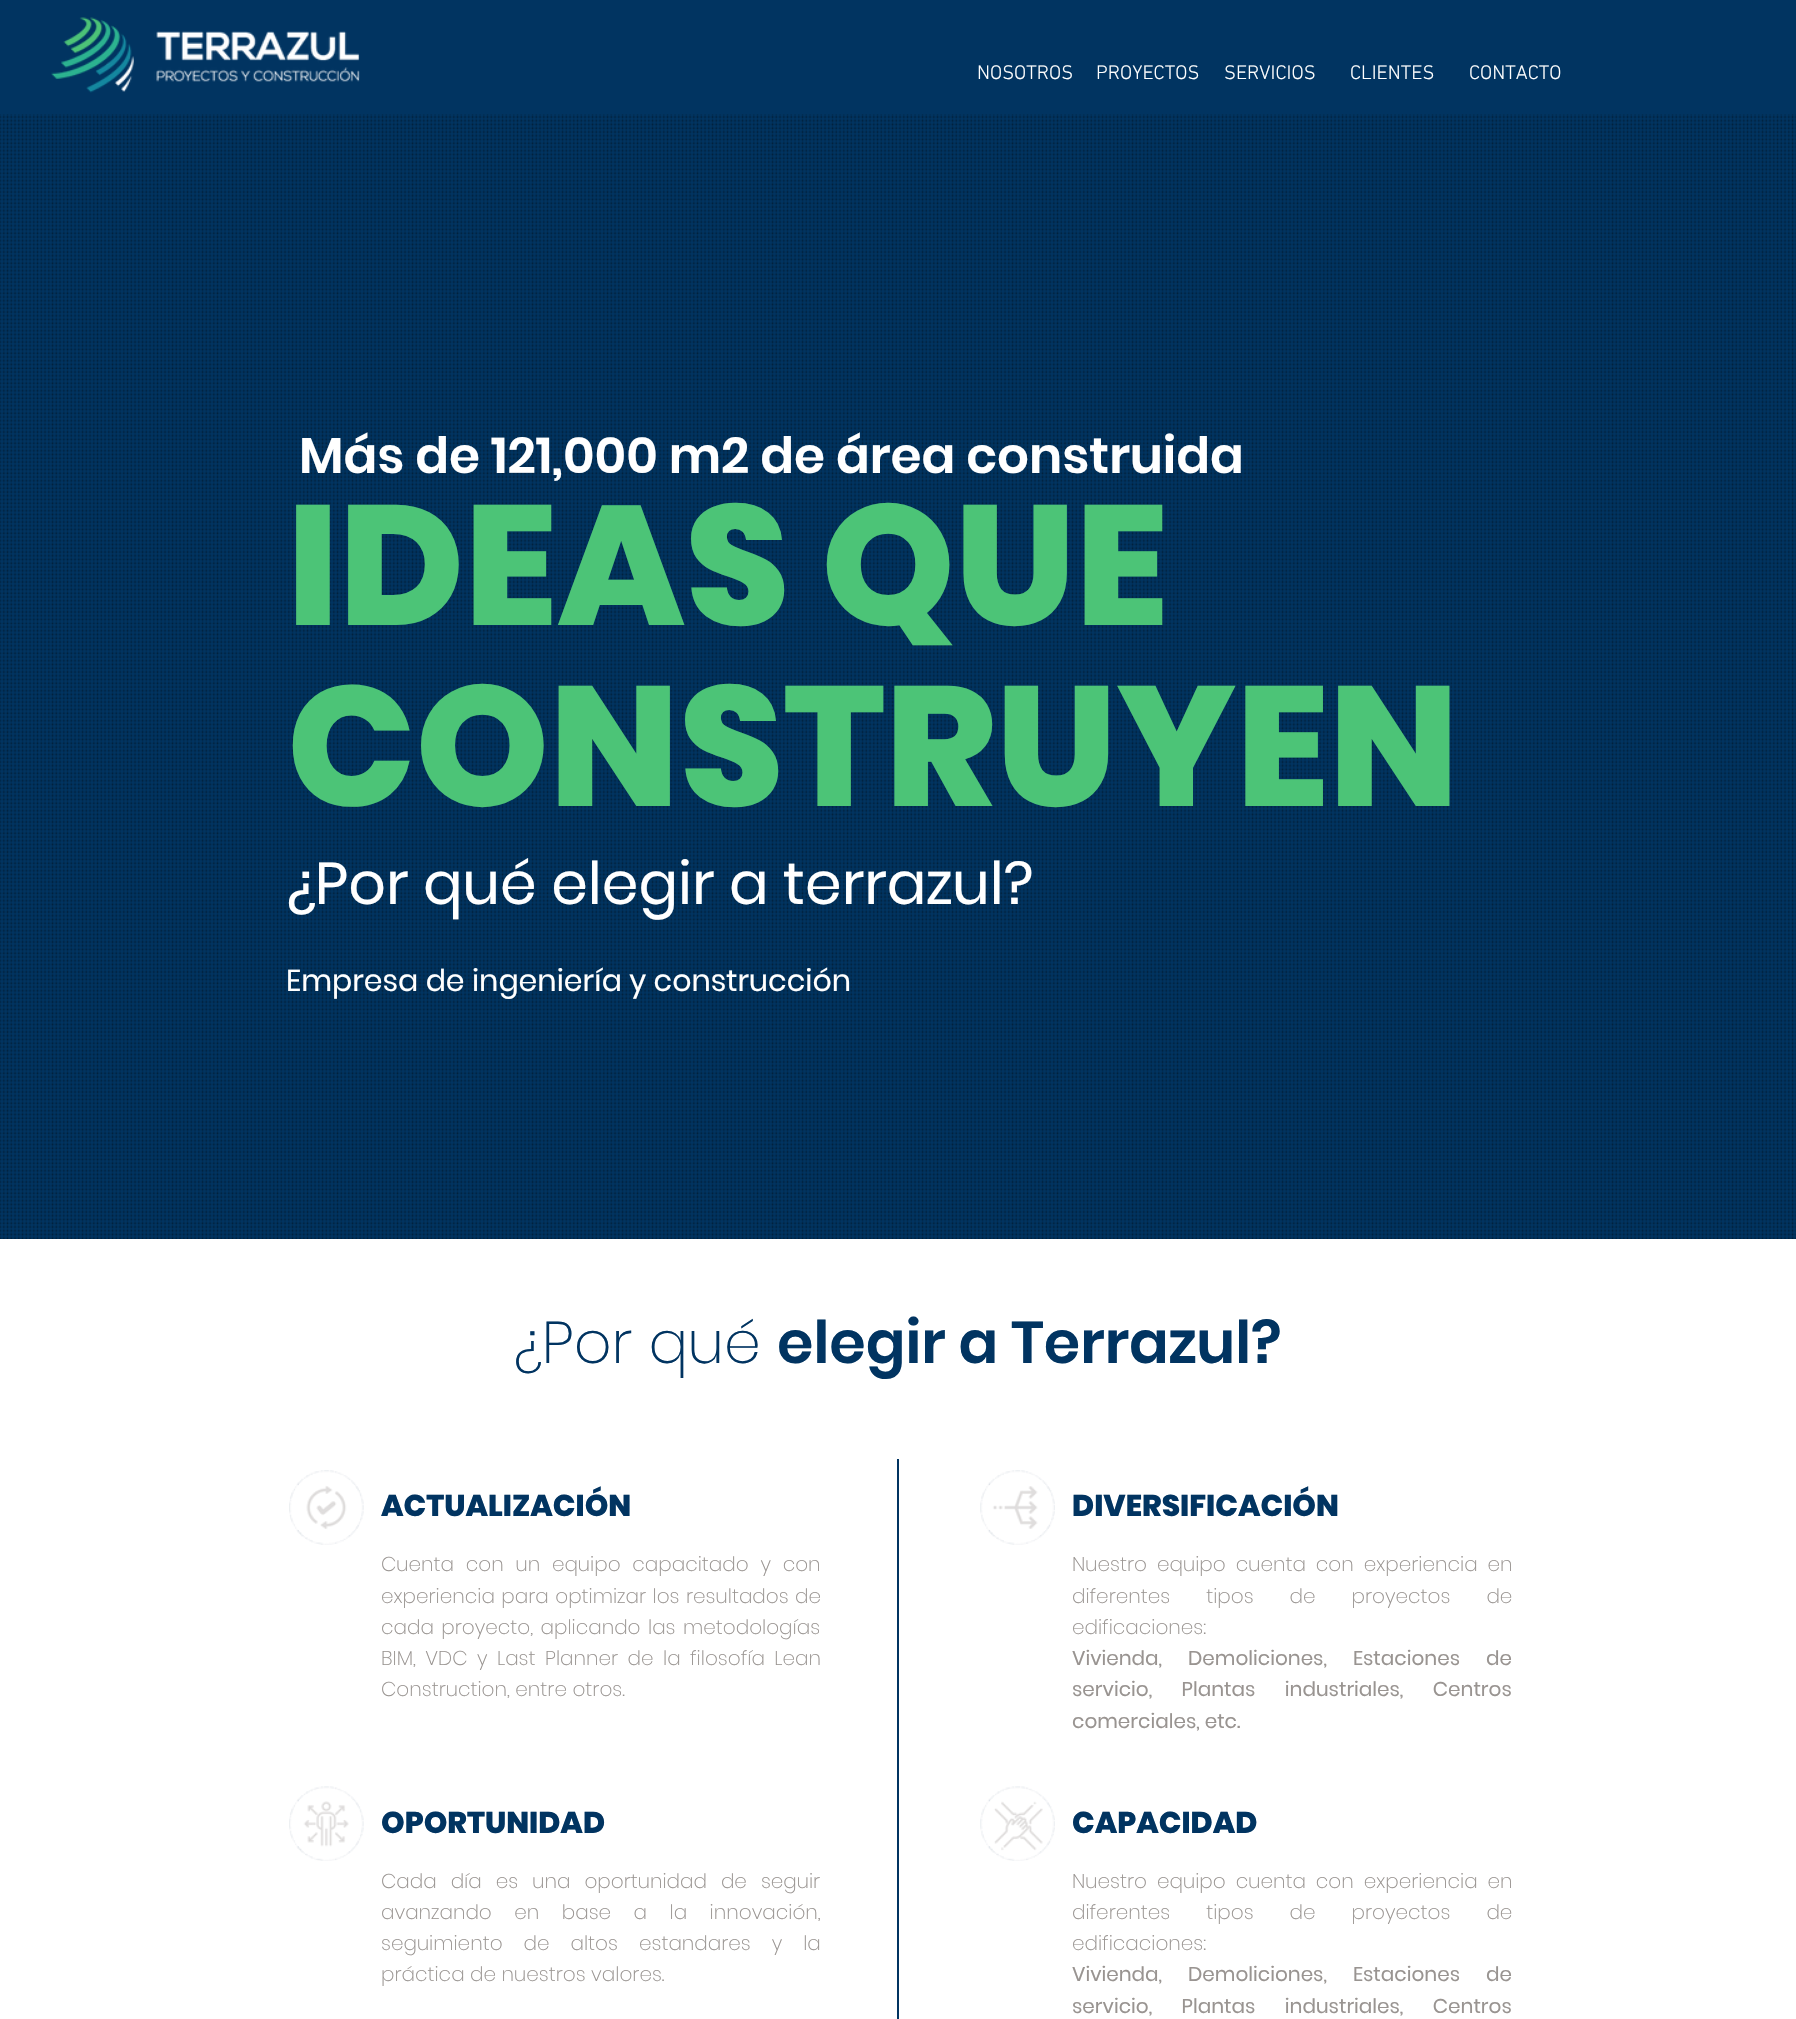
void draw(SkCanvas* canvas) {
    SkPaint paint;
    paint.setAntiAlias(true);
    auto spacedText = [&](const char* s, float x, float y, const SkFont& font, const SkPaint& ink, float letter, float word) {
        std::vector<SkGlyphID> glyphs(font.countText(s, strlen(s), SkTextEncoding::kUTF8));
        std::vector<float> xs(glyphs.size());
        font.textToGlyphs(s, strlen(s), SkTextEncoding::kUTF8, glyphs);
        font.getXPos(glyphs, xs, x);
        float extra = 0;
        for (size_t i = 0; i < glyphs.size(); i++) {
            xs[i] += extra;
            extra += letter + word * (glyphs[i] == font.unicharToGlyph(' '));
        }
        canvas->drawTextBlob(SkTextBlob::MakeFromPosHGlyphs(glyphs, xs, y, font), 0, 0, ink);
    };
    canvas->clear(0xFF013461);
    canvas->drawImageRect(SkImages::DeferredFromEncodedData(SkData::MakeFromFileName("img1.png")), SkRect::MakeXYWH(51, 17, 309, 76), SkSamplingOptions());
    SkFont font1(fontMgr->matchFamilyStyle("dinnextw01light", SkFontStyle(300, SkFontStyle::kNormal_Width, SkFontStyle::kUpright_Slant)), 20);
    font1.setSubpixel(true);
    paint.setColor(0xFFFFFFFF);
    canvas->drawString("NOSOTROS", 977, 79, font1, paint);
    canvas->drawString("PROYECTOS", 1096, 79, font1, paint);
    canvas->drawString("SERVICIOS", 1224, 79, font1, paint);
    canvas->drawString("CLIENTES", 1350, 79, font1, paint);
    canvas->drawString("CONTACTO", 1469, 79, font1, paint);
    canvas->drawImageRect(SkImages::DeferredFromEncodedData(SkData::MakeFromFileName("img2.png")), SkRect::MakeXYWH(0, 114, 1796, 1125), SkSamplingOptions());
    SkFont font2(fontMgr->matchFamilyStyle("Poppins", SkFontStyle(600, SkFontStyle::kNormal_Width, SkFontStyle::kUpright_Slant)), 50);
    font2.setSubpixel(true);
    canvas->drawString("Más de 121,000 m2 de área construida", 299, 473, font2, paint);
    SkFont font3(fontMgr->matchFamilyStyle("Poppins", SkFontStyle(800, SkFontStyle::kNormal_Width, SkFontStyle::kUpright_Slant)), 170);
    font3.setSubpixel(true);
    paint.setColor(0xFF4CC477);
    canvas->drawString("IDEAS QUE", 287, 625, font3, paint);
    canvas->drawString("CONSTRUYEN", 287, 806, font3, paint);
    SkFont font4(fontMgr->matchFamilyStyle("Poppins", SkFontStyle::Normal()), 58.75f);
    font4.setSubpixel(true);
    paint.setColor(0xFFFFFFFF);
    canvas->drawString("¿Por qué elegir a terrazul?", 286, 904, font4, paint);
    SkFont font5(fontMgr->matchFamilyStyle("Poppins", SkFontStyle::Normal()), 30);
    font5.setSubpixel(true);
    canvas->drawString("Empresa de ingeniería y construcción", 286, 991, font5, paint);
    canvas->drawRect(SkRect::MakeXYWH(0, 1239, 1796, 780), paint);
    SkFont font6(fontMgr->matchFamilyStyle("Poppins", SkFontStyle(200, SkFontStyle::kNormal_Width, SkFontStyle::kUpright_Slant)), 58.75f);
    font6.setSubpixel(true);
    paint.setColor(0xFF013461);
    canvas->drawString("¿Por qué", 514, 1363, font6, paint);
    SkFont font7(fontMgr->matchFamilyStyle("Poppins", SkFontStyle(600, SkFontStyle::kNormal_Width, SkFontStyle::kUpright_Slant)), 58.75f);
    font7.setSubpixel(true);
    canvas->drawString("elegir a Terrazul?", 777, 1363, font7, paint);
    canvas->drawImageRect(SkImages::DeferredFromEncodedData(SkData::MakeFromFileName("img3.png")), SkRect::MakeXYWH(289, 1470, 75, 75), SkSamplingOptions());
    SkFont font8(fontMgr->matchFamilyStyle("Poppins", SkFontStyle(800, SkFontStyle::kNormal_Width, SkFontStyle::kUpright_Slant)), 30);
    font8.setSubpixel(true);
    canvas->drawString("ACTUALIZACIÓN", 381, 1516, font8, paint);
    SkFont font9(fontMgr->matchFamilyStyle("Poppins", SkFontStyle(200, SkFontStyle::kNormal_Width, SkFontStyle::kUpright_Slant)), 20);
    font9.setSubpixel(true);
    paint.setColor(0xFF999491);
    spacedText("Cuenta con un equipo capacitado y con", 381, 1571, font9, paint, 0, 6.25f);
    spacedText("experiencia para optimizar los resultados de", 381, 1603, font9, paint, 0, 1);
    spacedText("cada proyecto, aplicando las metodologías", 381, 1634, font9, paint, 0, 2);
    spacedText("BIM, VDC y Last Planner de la filosofía Lean", 381, 1665, font9, paint, 0, 4);
    canvas->drawString("Construction, entre otros.", 381, 1696, font9, paint);
    paint.setColor(0xFF013461);
    canvas->drawRect(SkRect::MakeXYWH(897, 1459, 2, 560), paint);
    canvas->drawImageRect(SkImages::DeferredFromEncodedData(SkData::MakeFromFileName("img4.png")), SkRect::MakeXYWH(980, 1470, 75, 75), SkSamplingOptions());
    canvas->drawString("DIVERSIFICACIÓN", 1072, 1516, font8, paint);
    paint.setColor(0xFF999491);
    spacedText("Nuestro equipo cuenta con experiencia en", 1072, 1571, font9, paint, 0, 4.5f);
    spacedText("diferentes tipos de proyectos de", 1072, 1603, font9, paint, 0, 30.5f);
    canvas->drawString("edificaciones:", 1072, 1634, font9, paint);
    SkFont font10(fontMgr->matchFamilyStyle("Poppins", SkFontStyle::Normal()), 20);
    font10.setSubpixel(true);
    spacedText("Vivienda, Demoliciones, Estaciones de", 1072, 1665, font10, paint, 0, 21);
    spacedText("servicio, Plantas industriales, Centros", 1072, 1696, font10, paint, 0, 24.5f);
    canvas->drawString("comerciales, etc.", 1072, 1728, font10, paint);
    canvas->drawImageRect(SkImages::DeferredFromEncodedData(SkData::MakeFromFileName("img5.png")), SkRect::MakeXYWH(289, 1786, 75, 75), SkSamplingOptions());
    paint.setColor(0xFF013461);
    canvas->drawString("OPORTUNIDAD", 381, 1833, font8, paint);
    paint.setColor(0xFF999491);
    spacedText("Cada día es una oportunidad de seguir", 381, 1888, font9, paint, 0, 8.5f);
    spacedText("avanzando en base a la innovación,", 381, 1919, font9, paint, 0, 17);
    spacedText("seguimiento de altos estandares y la", 381, 1950, font9, paint, 0, 15.5f);
    canvas->drawString("práctica de nuestros valores.", 381, 1981, font9, paint);
    canvas->drawImageRect(SkImages::DeferredFromEncodedData(SkData::MakeFromFileName("img6.png")), SkRect::MakeXYWH(980, 1786, 75, 75), SkSamplingOptions());
    paint.setColor(0xFF013461);
    canvas->drawString("CAPACIDAD", 1072, 1833, font8, paint);
    paint.setColor(0xFF999491);
    spacedText("Nuestro equipo cuenta con experiencia en", 1072, 1888, font9, paint, 0, 4.5f);
    spacedText("diferentes tipos de proyectos de", 1072, 1919, font9, paint, 0, 30.5f);
    canvas->drawString("edificaciones:", 1072, 1950, font9, paint);
    spacedText("Vivienda, Demoliciones, Estaciones de", 1072, 1981, font10, paint, 0, 21);
    spacedText("servicio, Plantas industriales, Centros", 1072, 2013, font10, paint, 0, 24.5f);
}
